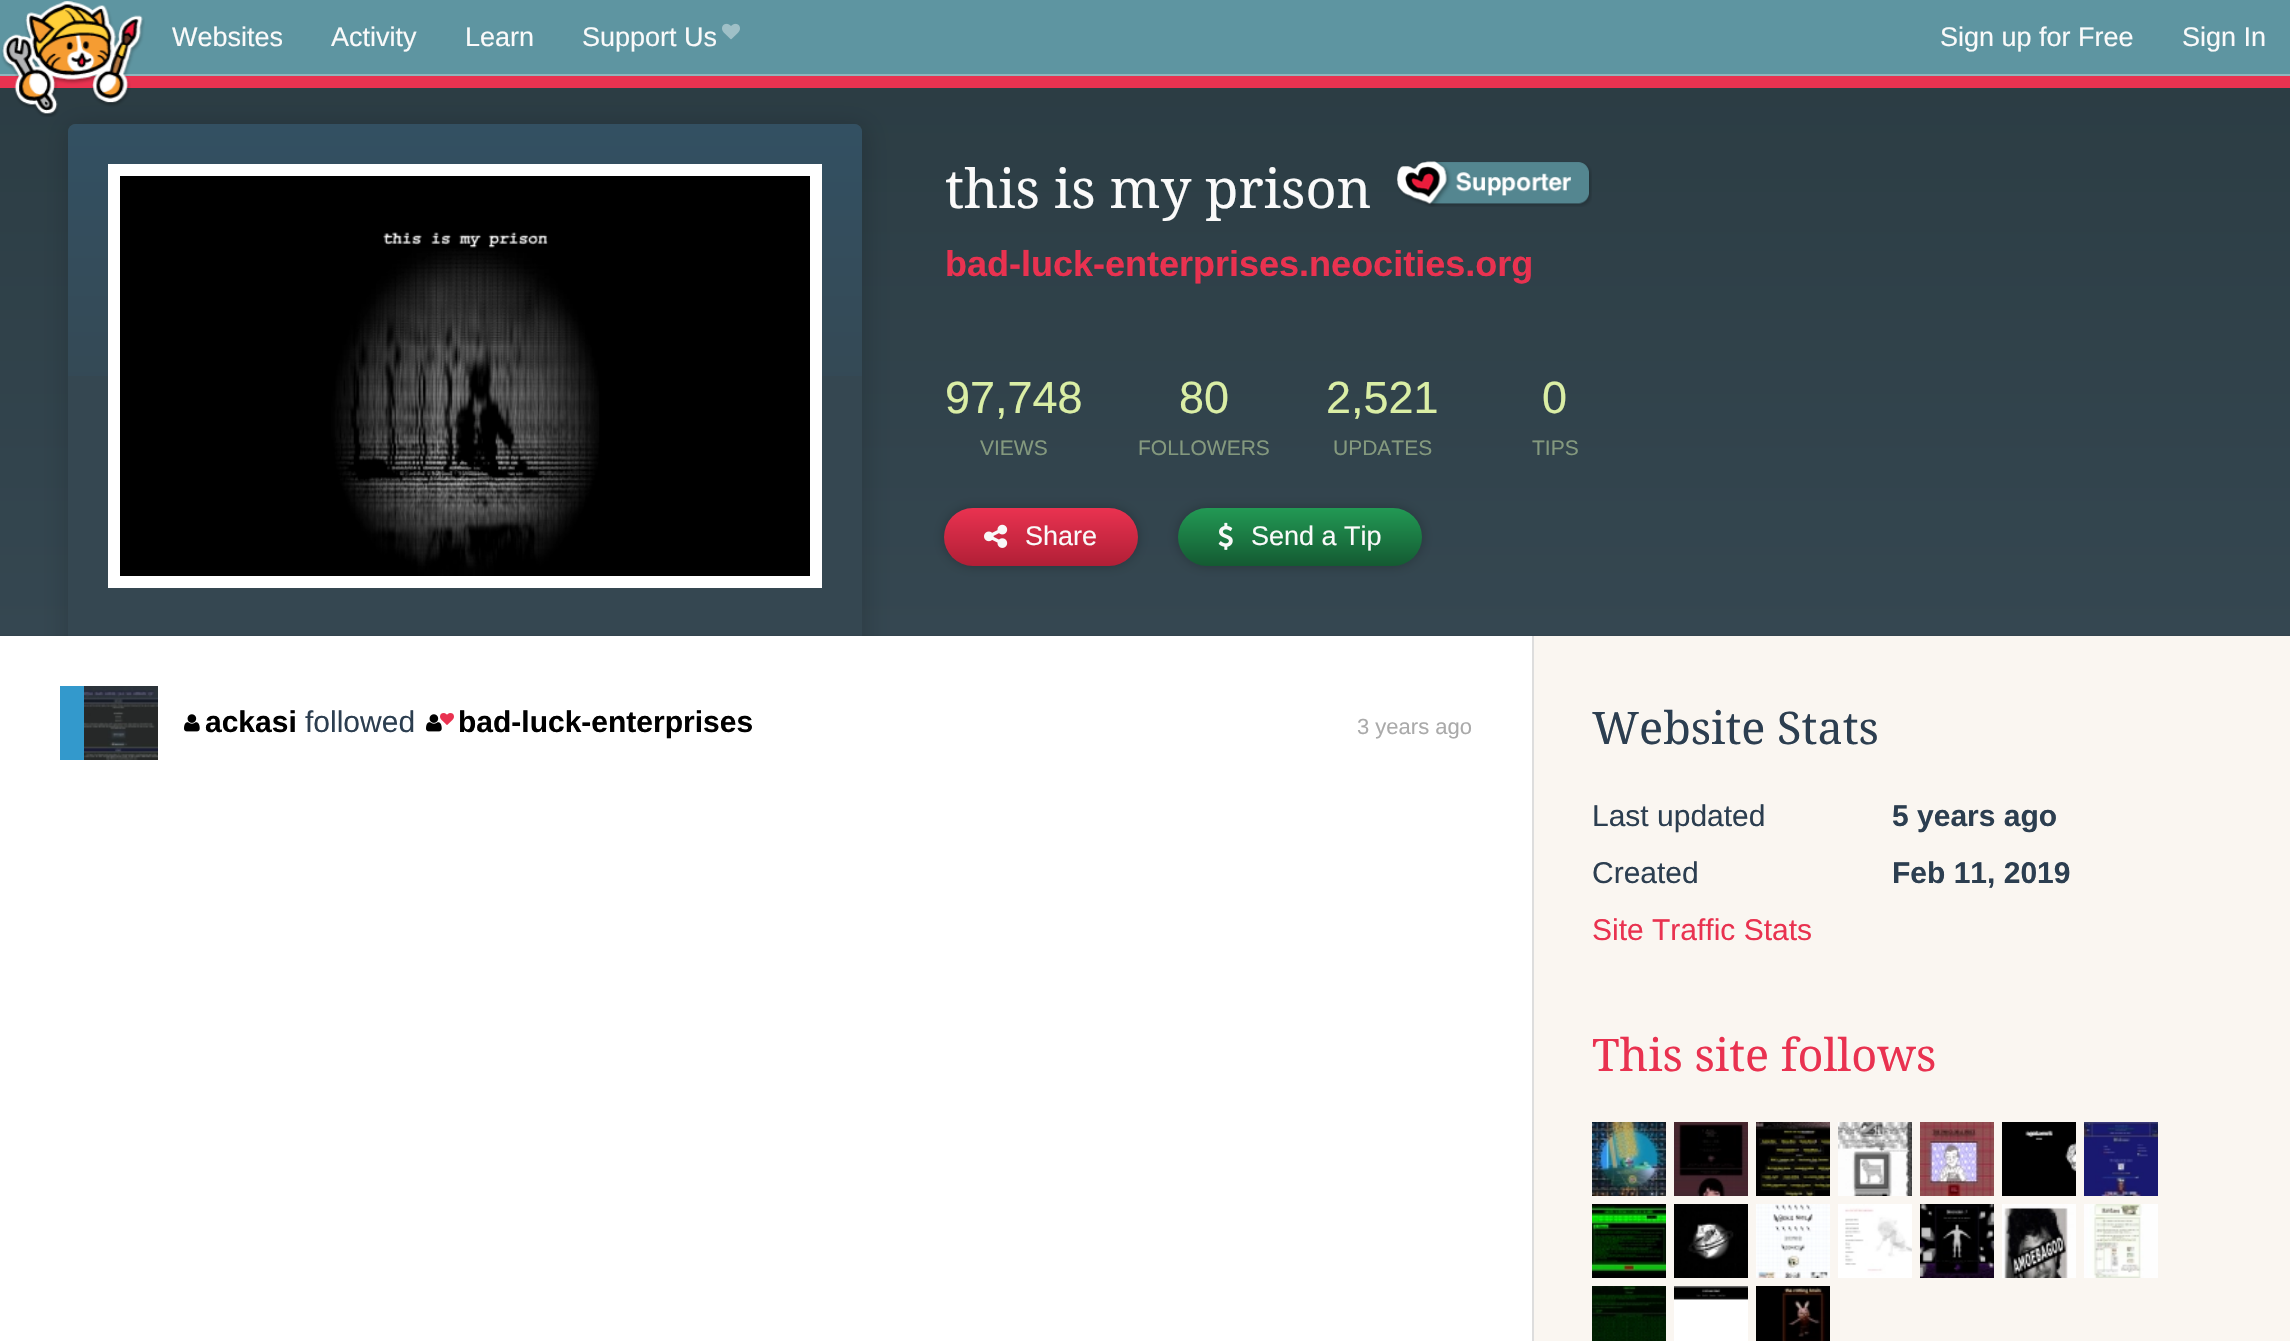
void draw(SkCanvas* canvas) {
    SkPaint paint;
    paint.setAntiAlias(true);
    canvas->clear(0xFFFFFFFF);
    {
        const SkColor colors[] = {0xFF2B3C43, 0xFF354751};
        const float stops[] = {0, 1};
        const SkPoint ends[] = {{1145, 44}, {1145, 636}};
        paint.setShader(SkGradientShader::MakeLinear(ends, colors, stops, 2, SkTileMode::kClamp));
        paint.setAlpha(255);
    }
    canvas->drawRect(SkRect::MakeXYWH(0, 88, 2290, 548), paint);
    paint.setShader(nullptr);
    paint.setColor(0x26000000);
    paint.setMaskFilter(SkMaskFilter::MakeBlur(kNormal_SkBlurStyle, 12));
    canvas->drawRoundRect(SkRect::MakeXYWH(66, 124, 802, 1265), 12, 12, paint);
    paint.setMaskFilter(nullptr);
    paint.setColor(0xFFE93250);
    canvas->drawRect(SkRect::MakeXYWH(0, 76, 2290, 12), paint);
    paint.setColor(0xFF5E95A1);
    canvas->drawRect(SkRect::MakeXYWH(0, 0, 2290, 74), paint);
    paint.setColor(0xFF92B4BD);
    canvas->drawRect(SkRect::MakeXYWH(0, 74, 2290, 2), paint);
    canvas->drawImageRect(SkImages::DeferredFromEncodedData(SkData::MakeFromFileName("img1.png")), SkRect::MakeXYWH(1, 1, 144, 116), SkSamplingOptions());
    SkFont font1(fontMgr->matchFamilyStyle("Liberation Sans", SkFontStyle::Normal()), 27);
    font1.setSubpixel(true);
    paint.setColor(0xFFFAFAFA);
    canvas->drawString("Websites", 172, 46, font1, paint);
    canvas->drawString("Activity", 331, 46, font1, paint);
    canvas->drawString("Learn", 465, 46, font1, paint);
    canvas->drawString("Support Us", 582, 46, font1, paint);
    canvas->drawImageRect(SkImages::DeferredFromEncodedData(SkData::MakeFromFileName("img2.png")), SkRect::MakeXYWH(722, 23, 18, 17), SkSamplingOptions());
    canvas->drawString("Sign up for Free", 1940, 46, font1, paint);
    canvas->drawString("Sign In", 2182, 46, font1, paint);
    paint.setColor(0xFF354751);
    canvas->drawPath(SkPathBuilder().moveTo(76, 124).lineTo(854, 124).cubicTo(858.5f, 124, 862, 127.5f, 862, 132).lineTo(862, 636).lineTo(68, 636).lineTo(68, 132).cubicTo(68, 127.5f, 71.5f, 124, 76, 124).close().detach(), paint);
    canvas->drawImageRect(SkImages::DeferredFromEncodedData(SkData::MakeFromFileName("img3.png")), SkRect::MakeXYWH(68, 124, 794, 252), SkSamplingOptions());
    canvas->drawImageRect(SkImages::DeferredFromEncodedData(SkData::MakeFromFileName("img4.png")), SkRect::MakeXYWH(120, 176, 690, 400), SkSamplingOptions());
    paint.setStyle(SkPaint::kStroke_Style);
    paint.setStrokeWidth(12);
    paint.setColor(0xFFFFFFFF);
    canvas->drawRect(SkRect::MakeXYWH(114, 170, 702, 412), paint);
    SkFont font2(fontMgr->matchFamilyStyle("Droid Serif", SkFontStyle::Normal()), 54);
    font2.setSubpixel(true);
    paint.setStyle(SkPaint::kFill_Style);
    paint.setColor(0xFFFAFAFA);
    canvas->drawString("this is my prison", 945, 208, font2, paint);
    canvas->drawImageRect(SkImages::DeferredFromEncodedData(SkData::MakeFromFileName("img5.png")), SkRect::MakeXYWH(1397, 161, 195, 46), SkSamplingOptions());
    SkFont font3(fontMgr->matchFamilyStyle("Liberation Sans", SkFontStyle::Bold()), 36);
    font3.setSubpixel(true);
    paint.setColor(0xFFE93250);
    canvas->drawString("bad-luck-enterprises.neocities.org", 945, 276, font3, paint);
    SkFont font4(fontMgr->matchFamilyStyle("Liberation Sans", SkFontStyle::Normal()), 45);
    font4.setSubpixel(true);
    paint.setColor(0xFFDAEEA5);
    canvas->drawString("97,748", 945, 413, font4, paint);
    SkFont font5(fontMgr->matchFamilyStyle("Liberation Sans", SkFontStyle::Normal()), 21);
    font5.setSubpixel(true);
    paint.setColor(0xFF84997E);
    canvas->drawString("VIEWS", 980, 455, font5, paint);
    paint.setColor(0xFFDAEEA5);
    canvas->drawString("80", 1179, 413, font4, paint);
    paint.setColor(0xFF84997E);
    canvas->drawString("FOLLOWERS", 1138, 455, font5, paint);
    paint.setColor(0xFFDAEEA5);
    canvas->drawString("2,521", 1326, 413, font4, paint);
    paint.setColor(0xFF84997E);
    canvas->drawString("UPDATES", 1333, 455, font5, paint);
    paint.setColor(0xFFDAEEA5);
    canvas->drawString("0", 1542, 413, font4, paint);
    paint.setColor(0xFF84997E);
    canvas->drawString("TIPS", 1532, 455, font5, paint);
    paint.setColor(0x40000000);
    paint.setMaskFilter(SkMaskFilter::MakeBlur(kNormal_SkBlurStyle, 6));
    canvas->drawRoundRect(SkRect::MakeXYWH(944, 508, 194, 58), 29, 29, paint);
    paint.setMaskFilter(nullptr);
    {
        const SkColor colors[] = {0xFFE93250, 0xFFB11F36};
        const float stops[] = {0, 1};
        const SkPoint ends[] = {{1041, 508}, {1041, 566}};
        paint.setShader(SkGradientShader::MakeLinear(ends, colors, stops, 2, SkTileMode::kClamp));
        paint.setAlpha(255);
    }
    canvas->drawRoundRect(SkRect::MakeXYWH(944, 508, 194, 58), 29, 29, paint);
    canvas->drawImageRect(SkImages::DeferredFromEncodedData(SkData::MakeFromFileName("img6.png")), SkRect::MakeXYWH(984, 524, 24, 24), SkSamplingOptions());
    paint.setShader(nullptr);
    paint.setColor(0xFFFAFAFA);
    canvas->drawString("Share", 1025, 545, font1, paint);
    paint.setColor(0x40000000);
    paint.setMaskFilter(SkMaskFilter::MakeBlur(kNormal_SkBlurStyle, 6));
    canvas->drawRoundRect(SkRect::MakeXYWH(1178, 508, 244, 58), 29, 29, paint);
    paint.setMaskFilter(nullptr);
    {
        const SkColor colors[] = {0xFF229954, 0xFF145A32};
        const float stops[] = {0, 1};
        const SkPoint ends[] = {{1300, 508}, {1300, 566}};
        paint.setShader(SkGradientShader::MakeLinear(ends, colors, stops, 2, SkTileMode::kClamp));
        paint.setAlpha(255);
    }
    canvas->drawRoundRect(SkRect::MakeXYWH(1178, 508, 244, 58), 29, 29, paint);
    canvas->drawImageRect(SkImages::DeferredFromEncodedData(SkData::MakeFromFileName("img7.png")), SkRect::MakeXYWH(1218, 522, 15, 28), SkSamplingOptions());
    paint.setShader(nullptr);
    paint.setColor(0xFFFAFAFA);
    canvas->drawString("Send a Tip", 1251, 545, font1, paint);
    paint.setColor(0x1A000000);
    paint.setMaskFilter(SkMaskFilter::MakeBlur(kNormal_SkBlurStyle, 1));
    canvas->drawRect(SkRect::MakeXYWH(-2, 636, 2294, 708), paint);
    paint.setMaskFilter(nullptr);
    paint.setColor(0xFFFAF6F1);
    canvas->drawRect(SkRect::MakeXYWH(1534, 636, 756, 705), paint);
    paint.setColor(0xFFDDDDDD);
    canvas->drawRect(SkRect::MakeXYWH(1532, 636, 2, 705), paint);
    paint.setColor(0xFFFFFFFF);
    canvas->drawRect(SkRect::MakeXYWH(0, 636, 1532, 705), paint);
    paint.setColor(0xFF3399CC);
    canvas->drawRect(SkRect::MakeXYWH(60, 686, 24, 74), paint);
    canvas->drawImageRect(SkImages::DeferredFromEncodedData(SkData::MakeFromFileName("img8.png")), SkRect::MakeXYWH(84, 686, 74, 74), SkSamplingOptions());
    canvas->drawImageRect(SkImages::DeferredFromEncodedData(SkData::MakeFromFileName("img9.png")), SkRect::MakeXYWH(184, 714, 16, 18), SkSamplingOptions());
    SkFont font6(fontMgr->matchFamilyStyle("Liberation Sans", SkFontStyle::Bold()), 30);
    font6.setSubpixel(true);
    paint.setColor(0xFF000000);
    canvas->drawString("ackasi", 205, 732, font6, paint);
    SkFont font7(fontMgr->matchFamilyStyle("Liberation Sans", SkFontStyle::Normal()), 30);
    font7.setSubpixel(true);
    paint.setColor(0xFF2C3E50);
    canvas->drawString("followed", 305, 732, font7, paint);
    canvas->drawImageRect(SkImages::DeferredFromEncodedData(SkData::MakeFromFileName("img9.png")), SkRect::MakeXYWH(426, 714, 16, 18), SkSamplingOptions());
    canvas->drawImageRect(SkImages::DeferredFromEncodedData(SkData::MakeFromFileName("img10.png")), SkRect::MakeXYWH(440, 713, 14, 12), SkSamplingOptions());
    paint.setColor(0xFF000000);
    canvas->drawString("bad-luck-enterprises", 458, 732, font6, paint);
    SkFont font8(fontMgr->matchFamilyStyle("Liberation Sans", SkFontStyle::Normal()), 22);
    font8.setSubpixel(true);
    paint.setColor(0xFFAAAAAA);
    canvas->drawString("3 years ago", 1357, 734, font8, paint);
    SkFont font9(fontMgr->matchFamilyStyle("Droid Serif", SkFontStyle::Normal()), 45);
    font9.setSubpixel(true);
    paint.setColor(0xFF2C3E50);
    canvas->drawString("Website Stats", 1592, 744, font9, paint);
    canvas->drawString("Last updated", 1592, 826, font7, paint);
    canvas->drawString("5 years ago", 1892, 826, font6, paint);
    canvas->drawString("Created", 1592, 883, font7, paint);
    canvas->drawString("Feb 11, 2019", 1892, 883, font6, paint);
    paint.setColor(0xFFE93250);
    canvas->drawString("Site Traffic Stats", 1592, 940, font7, paint);
    canvas->drawString("This site follows", 1592, 1071, font9, paint);
    canvas->drawImageRect(SkImages::DeferredFromEncodedData(SkData::MakeFromFileName("img11.png")), SkRect::MakeXYWH(1592, 1122, 74, 74), SkSamplingOptions());
    canvas->drawImageRect(SkImages::DeferredFromEncodedData(SkData::MakeFromFileName("img12.png")), SkRect::MakeXYWH(1674, 1122, 74, 74), SkSamplingOptions());
    canvas->drawImageRect(SkImages::DeferredFromEncodedData(SkData::MakeFromFileName("img13.png")), SkRect::MakeXYWH(1756, 1122, 74, 74), SkSamplingOptions());
    canvas->drawImageRect(SkImages::DeferredFromEncodedData(SkData::MakeFromFileName("img14.png")), SkRect::MakeXYWH(1838, 1122, 74, 74), SkSamplingOptions());
    canvas->drawImageRect(SkImages::DeferredFromEncodedData(SkData::MakeFromFileName("img15.png")), SkRect::MakeXYWH(1920, 1122, 74, 74), SkSamplingOptions());
    canvas->drawImageRect(SkImages::DeferredFromEncodedData(SkData::MakeFromFileName("img16.png")), SkRect::MakeXYWH(2002, 1122, 74, 74), SkSamplingOptions());
    canvas->drawImageRect(SkImages::DeferredFromEncodedData(SkData::MakeFromFileName("img17.png")), SkRect::MakeXYWH(2084, 1122, 74, 74), SkSamplingOptions());
    canvas->drawImageRect(SkImages::DeferredFromEncodedData(SkData::MakeFromFileName("img18.png")), SkRect::MakeXYWH(1592, 1204, 74, 74), SkSamplingOptions());
    canvas->drawImageRect(SkImages::DeferredFromEncodedData(SkData::MakeFromFileName("img19.png")), SkRect::MakeXYWH(1674, 1204, 74, 74), SkSamplingOptions());
    canvas->drawImageRect(SkImages::DeferredFromEncodedData(SkData::MakeFromFileName("img20.png")), SkRect::MakeXYWH(1756, 1204, 74, 74), SkSamplingOptions());
    canvas->drawImageRect(SkImages::DeferredFromEncodedData(SkData::MakeFromFileName("img21.png")), SkRect::MakeXYWH(1838, 1204, 74, 74), SkSamplingOptions());
    canvas->drawImageRect(SkImages::DeferredFromEncodedData(SkData::MakeFromFileName("img22.png")), SkRect::MakeXYWH(1920, 1204, 74, 74), SkSamplingOptions());
    canvas->drawImageRect(SkImages::DeferredFromEncodedData(SkData::MakeFromFileName("img23.png")), SkRect::MakeXYWH(2002, 1204, 74, 74), SkSamplingOptions());
    canvas->drawImageRect(SkImages::DeferredFromEncodedData(SkData::MakeFromFileName("img24.png")), SkRect::MakeXYWH(2084, 1204, 74, 74), SkSamplingOptions());
    canvas->drawImageRect(SkImages::DeferredFromEncodedData(SkData::MakeFromFileName("img25.png")), SkRect::MakeXYWH(1592, 1286, 74, 55), SkSamplingOptions());
    canvas->drawImageRect(SkImages::DeferredFromEncodedData(SkData::MakeFromFileName("img26.png")), SkRect::MakeXYWH(1674, 1286, 74, 55), SkSamplingOptions());
    canvas->drawImageRect(SkImages::DeferredFromEncodedData(SkData::MakeFromFileName("img27.png")), SkRect::MakeXYWH(1756, 1286, 74, 55), SkSamplingOptions());
}
